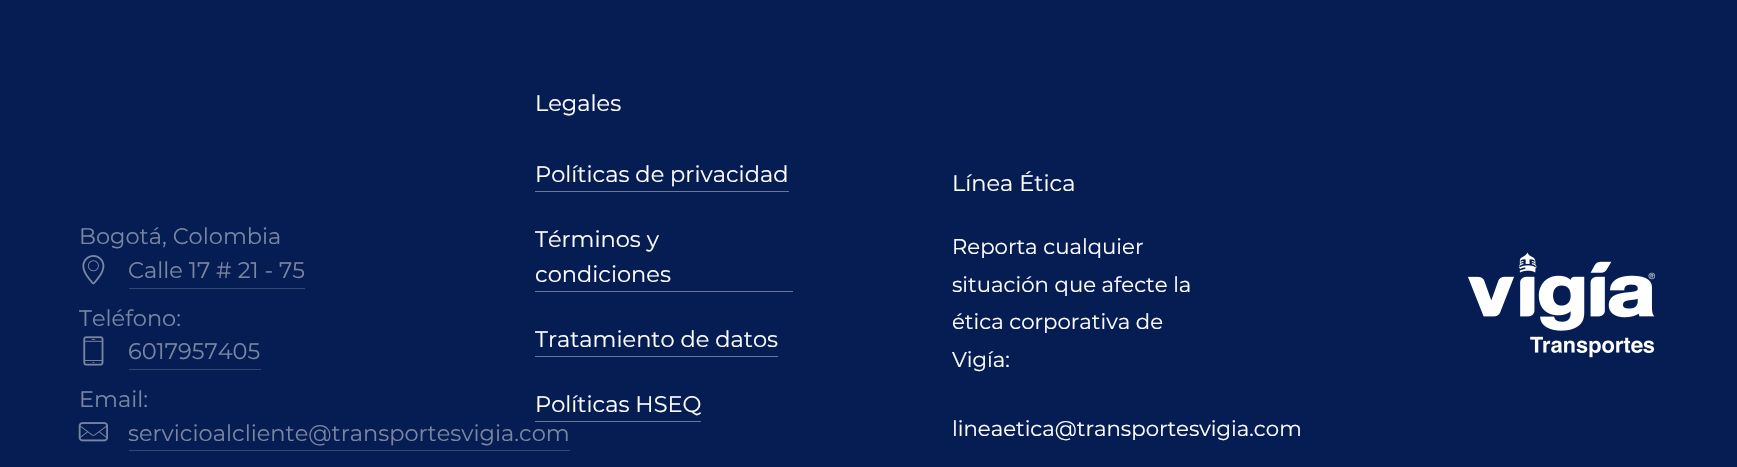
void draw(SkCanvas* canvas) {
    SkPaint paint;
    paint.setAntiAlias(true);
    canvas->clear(0xFF061D53);
    SkFont font1(fontMgr->matchFamilyStyle("Montserrat", SkFontStyle::Normal()), 22.5f);
    font1.setSubpixel(true);
    paint.setColor(0xFF7985A2);
    canvas->drawString("Bogotá, Colombia", 79, 244, font1, paint);
    canvas->drawImageRect(SkImages::DeferredFromEncodedData(SkData::MakeFromFileName("img1.png")), SkRect::MakeXYWH(82, 255, 23, 30), SkSamplingOptions());
    canvas->drawString("Calle 17 # 21 - 75", 128, 278, font1, paint);
    paint.setColor(0xFF344773);
    canvas->drawRect(SkRect::MakeXYWH(129, 288, 176, 1), paint);
    paint.setColor(0xFF7985A2);
    canvas->drawString("Teléfono:", 79, 326, font1, paint);
    canvas->drawImageRect(SkImages::DeferredFromEncodedData(SkData::MakeFromFileName("img2.png")), SkRect::MakeXYWH(83, 336, 21, 30), SkSamplingOptions());
    canvas->drawString("6017957405", 128, 359, font1, paint);
    paint.setColor(0xFF344773);
    canvas->drawRect(SkRect::MakeXYWH(129, 369, 132, 1), paint);
    paint.setColor(0xFF7985A2);
    canvas->drawString("Email:", 79, 407, font1, paint);
    canvas->drawImageRect(SkImages::DeferredFromEncodedData(SkData::MakeFromFileName("img3.png")), SkRect::MakeXYWH(78, 422, 30, 20), SkSamplingOptions());
    canvas->drawString("servicioalcliente@transportesvigia.com", 128, 441, font1, paint);
    paint.setColor(0xFF344773);
    canvas->drawRect(SkRect::MakeXYWH(129, 450, 441, 1), paint);
    paint.setColor(0xFFFFFFFF);
    canvas->drawString("Legales", 535, 111, font1, paint);
    canvas->drawString("Políticas de privacidad", 535, 182, font1, paint);
    paint.setColor(0xFF6A7898);
    canvas->drawRect(SkRect::MakeXYWH(535, 191, 254, 1), paint);
    paint.setColor(0xFFFFFFFF);
    canvas->drawString("Términos y", 535, 247, font1, paint);
    canvas->drawString("condiciones", 535, 282, font1, paint);
    paint.setColor(0xFF6A7898);
    canvas->drawRect(SkRect::MakeXYWH(535, 291, 258, 1), paint);
    paint.setColor(0xFFFFFFFF);
    canvas->drawString("Tratamiento de datos", 535, 347, font1, paint);
    paint.setColor(0xFF6A7898);
    canvas->drawRect(SkRect::MakeXYWH(535, 356, 243, 1), paint);
    paint.setColor(0xFFFFFFFF);
    canvas->drawString("Políticas HSEQ", 535, 412, font1, paint);
    paint.setColor(0xFF6A7898);
    canvas->drawRect(SkRect::MakeXYWH(535, 421, 166, 1), paint);
    paint.setColor(0xFFFFFFFF);
    canvas->drawString("Línea Ética", 952, 191, font1, paint);
    SkFont font2(fontMgr->matchFamilyStyle("Montserrat", SkFontStyle::Normal()), 21.25f);
    font2.setSubpixel(true);
    canvas->drawString("Reporta cualquier", 952, 254, font2, paint);
    canvas->drawString("situación que afecte la", 952, 292, font2, paint);
    canvas->drawString("ética corporativa de", 952, 329, font2, paint);
    canvas->drawString("Vigía:", 952, 367, font2, paint);
    canvas->drawString("lineaetica@transportesvigia.com", 952, 436, font2, paint);
    canvas->drawImageRect(SkImages::DeferredFromEncodedData(SkData::MakeFromFileName("img4.png")), SkRect::MakeXYWH(1468, 252, 187, 106), SkSamplingOptions());
}
